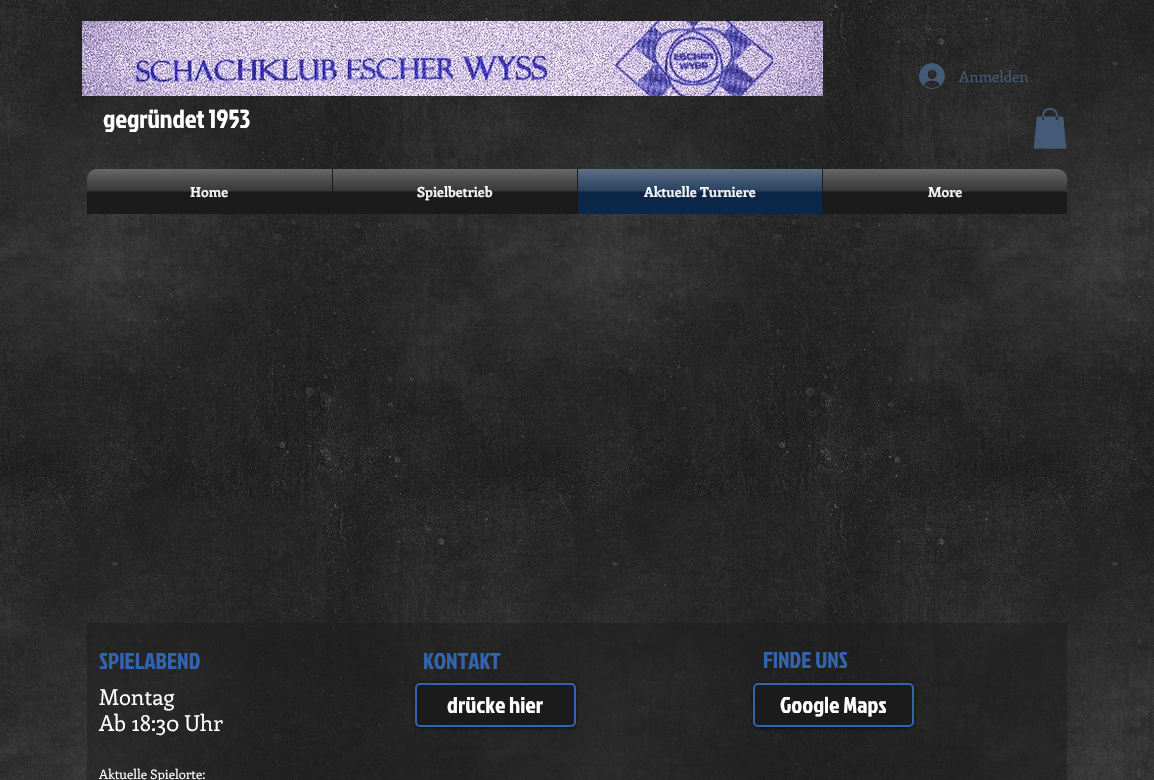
void draw(SkCanvas* canvas) {
    SkPaint paint;
    paint.setAntiAlias(true);
    canvas->clear(0xFF1B1B1B);
    canvas->drawImageRect(SkImages::DeferredFromEncodedData(SkData::MakeFromFileName("img1.png")), SkRect::MakeXYWH(0, 0, 1154, 780), SkSamplingOptions());
    canvas->drawImageRect(SkImages::DeferredFromEncodedData(SkData::MakeFromFileName("img2.png")), SkRect::MakeXYWH(82, 21, 741, 75), SkSamplingOptions());
    canvas->drawImageRect(SkImages::DeferredFromEncodedData(SkData::MakeFromFileName("img3.png")), SkRect::MakeXYWH(919, 63, 26, 26), SkSamplingOptions());
    SkFont font1(fontMgr->matchFamilyStyle("Enriqueta", SkFontStyle::Normal()), 15);
    font1.setSubpixel(true);
    paint.setColor(0xFF445B77);
    canvas->drawString("Anmelden", 959, 82, font1, paint);
    SkFont font2(fontMgr->matchFamilyStyle("Jockey One", SkFontStyle::Normal()), 26);
    font2.setSubpixel(true);
    paint.setColor(0xFFFFFFFF);
    canvas->drawString("gegründet 1953", 103, 128, font2, paint);
    canvas->drawImageRect(SkImages::DeferredFromEncodedData(SkData::MakeFromFileName("img4.png")), SkRect::MakeXYWH(1033, 108, 34, 41), SkSamplingOptions());
    canvas->drawImageRect(SkImages::DeferredFromEncodedData(SkData::MakeFromFileName("img5.png")), SkRect::MakeXYWH(87, 169, 980, 10), SkSamplingOptions());
    paint.setColor(0xFF1B1B1B);
    canvas->drawPath(SkPathBuilder().moveTo(97, 169).lineTo(332, 169).lineTo(332, 214).lineTo(87, 214).lineTo(87, 179).cubicTo(87, 173.5f, 91.5f, 169, 97, 169).close().detach(), paint);
    SkFont font3(fontMgr->matchFamilyStyle("Enriqueta", SkFontStyle::Bold()), 14);
    font3.setSubpixel(true);
    paint.setColor(0xFFFFFFFF);
    canvas->drawString("Home", 190, 197, font3, paint);
    canvas->drawImageRect(SkImages::DeferredFromEncodedData(SkData::MakeFromFileName("img6.png")), SkRect::MakeXYWH(87, 169, 245, 28), SkSamplingOptions());
    paint.setColor(0xFF1B1B1B);
    canvas->drawRect(SkRect::MakeXYWH(332, 169, 246, 45), paint);
    paint.setColor(0xFFFFFFFF);
    canvas->drawString("Spielbetrieb", 417, 197, font3, paint);
    canvas->drawImageRect(SkImages::DeferredFromEncodedData(SkData::MakeFromFileName("img7.png")), SkRect::MakeXYWH(333, 169, 244, 32), SkSamplingOptions());
    paint.setColor(0xFF0B2749);
    canvas->drawRect(SkRect::MakeXYWH(578, 169, 244, 45), paint);
    paint.setColor(0xFFFFFFFF);
    canvas->drawString("Aktuelle Turniere", 644, 197, font3, paint);
    canvas->drawImageRect(SkImages::DeferredFromEncodedData(SkData::MakeFromFileName("img8.png")), SkRect::MakeXYWH(578, 169, 244, 31), SkSamplingOptions());
    paint.setColor(0xFF1B1B1B);
    canvas->drawPath(SkPathBuilder().moveTo(822, 169).lineTo(1057, 169).cubicTo(1062.5f, 169, 1067, 173.5f, 1067, 179).lineTo(1067, 214).lineTo(822, 214).close().detach(), paint);
    paint.setColor(0xFFFFFFFF);
    canvas->drawString("More", 928, 197, font3, paint);
    canvas->drawImageRect(SkImages::DeferredFromEncodedData(SkData::MakeFromFileName("img9.png")), SkRect::MakeXYWH(823, 169, 244, 28), SkSamplingOptions());
    paint.setColor(0x801B1B1B);
    canvas->drawRect(SkRect::MakeXYWH(87, 623, 980, 157), paint);
    SkFont font4(fontMgr->matchFamilyStyle("Jockey One", SkFontStyle::Normal()), 23);
    font4.setSubpixel(true);
    paint.setColor(0xFF3364AF);
    canvas->drawString("SPIELABEND", 99, 669, font4, paint);
    canvas->drawString("KONTAKT", 423, 669, font4, paint);
    canvas->drawString("FINDE UNS", 763, 668, font4, paint);
    SkFont font5(fontMgr->matchFamilyStyle("Enriqueta", SkFontStyle::Normal()), 22);
    font5.setSubpixel(true);
    paint.setColor(0xFFFFFFFF);
    canvas->drawString("Montag", 99, 705, font5, paint);
    canvas->drawString("Ab 18:30 Uhr", 99, 731, font5, paint);
    SkFont font6(fontMgr->matchFamilyStyle("Enriqueta", SkFontStyle::Normal()), 13);
    font6.setSubpixel(true);
    canvas->drawString("Aktuelle Spielorte:", 99, 779, font6, paint);
    paint.setColor(0x99000000);
    paint.setMaskFilter(SkMaskFilter::MakeBlur(kNormal_SkBlurStyle, 2));
    canvas->drawRoundRect(SkRect::MakeXYWH(415, 684, 161, 44), 5, 5, paint);
    paint.setMaskFilter(nullptr);
    paint.setColor(0xFF1B1B1B);
    canvas->drawRoundRect(SkRect::MakeXYWH(416, 684, 159, 42), 4, 4, paint);
    paint.setStyle(SkPaint::kStroke_Style);
    paint.setStrokeWidth(2);
    paint.setColor(0xFF3364AF);
    canvas->drawRoundRect(SkRect::MakeXYWH(416, 684, 159, 42), 4, 4, paint);
    paint.setStyle(SkPaint::kFill_Style);
    paint.setColor(0xFFFFFFFF);
    canvas->drawString("drücke hier", 447, 713, font4, paint);
    paint.setColor(0x99000000);
    paint.setMaskFilter(SkMaskFilter::MakeBlur(kNormal_SkBlurStyle, 2));
    canvas->drawRoundRect(SkRect::MakeXYWH(753, 684, 161, 44), 5, 5, paint);
    paint.setMaskFilter(nullptr);
    paint.setColor(0xFF1B1B1B);
    canvas->drawRoundRect(SkRect::MakeXYWH(754, 684, 159, 42), 4, 4, paint);
    paint.setStyle(SkPaint::kStroke_Style);
    paint.setColor(0xFF3364AF);
    canvas->drawRoundRect(SkRect::MakeXYWH(754, 684, 159, 42), 4, 4, paint);
    paint.setStyle(SkPaint::kFill_Style);
    paint.setColor(0xFFFFFFFF);
    canvas->drawString("Google Maps", 780, 713, font4, paint);
}
